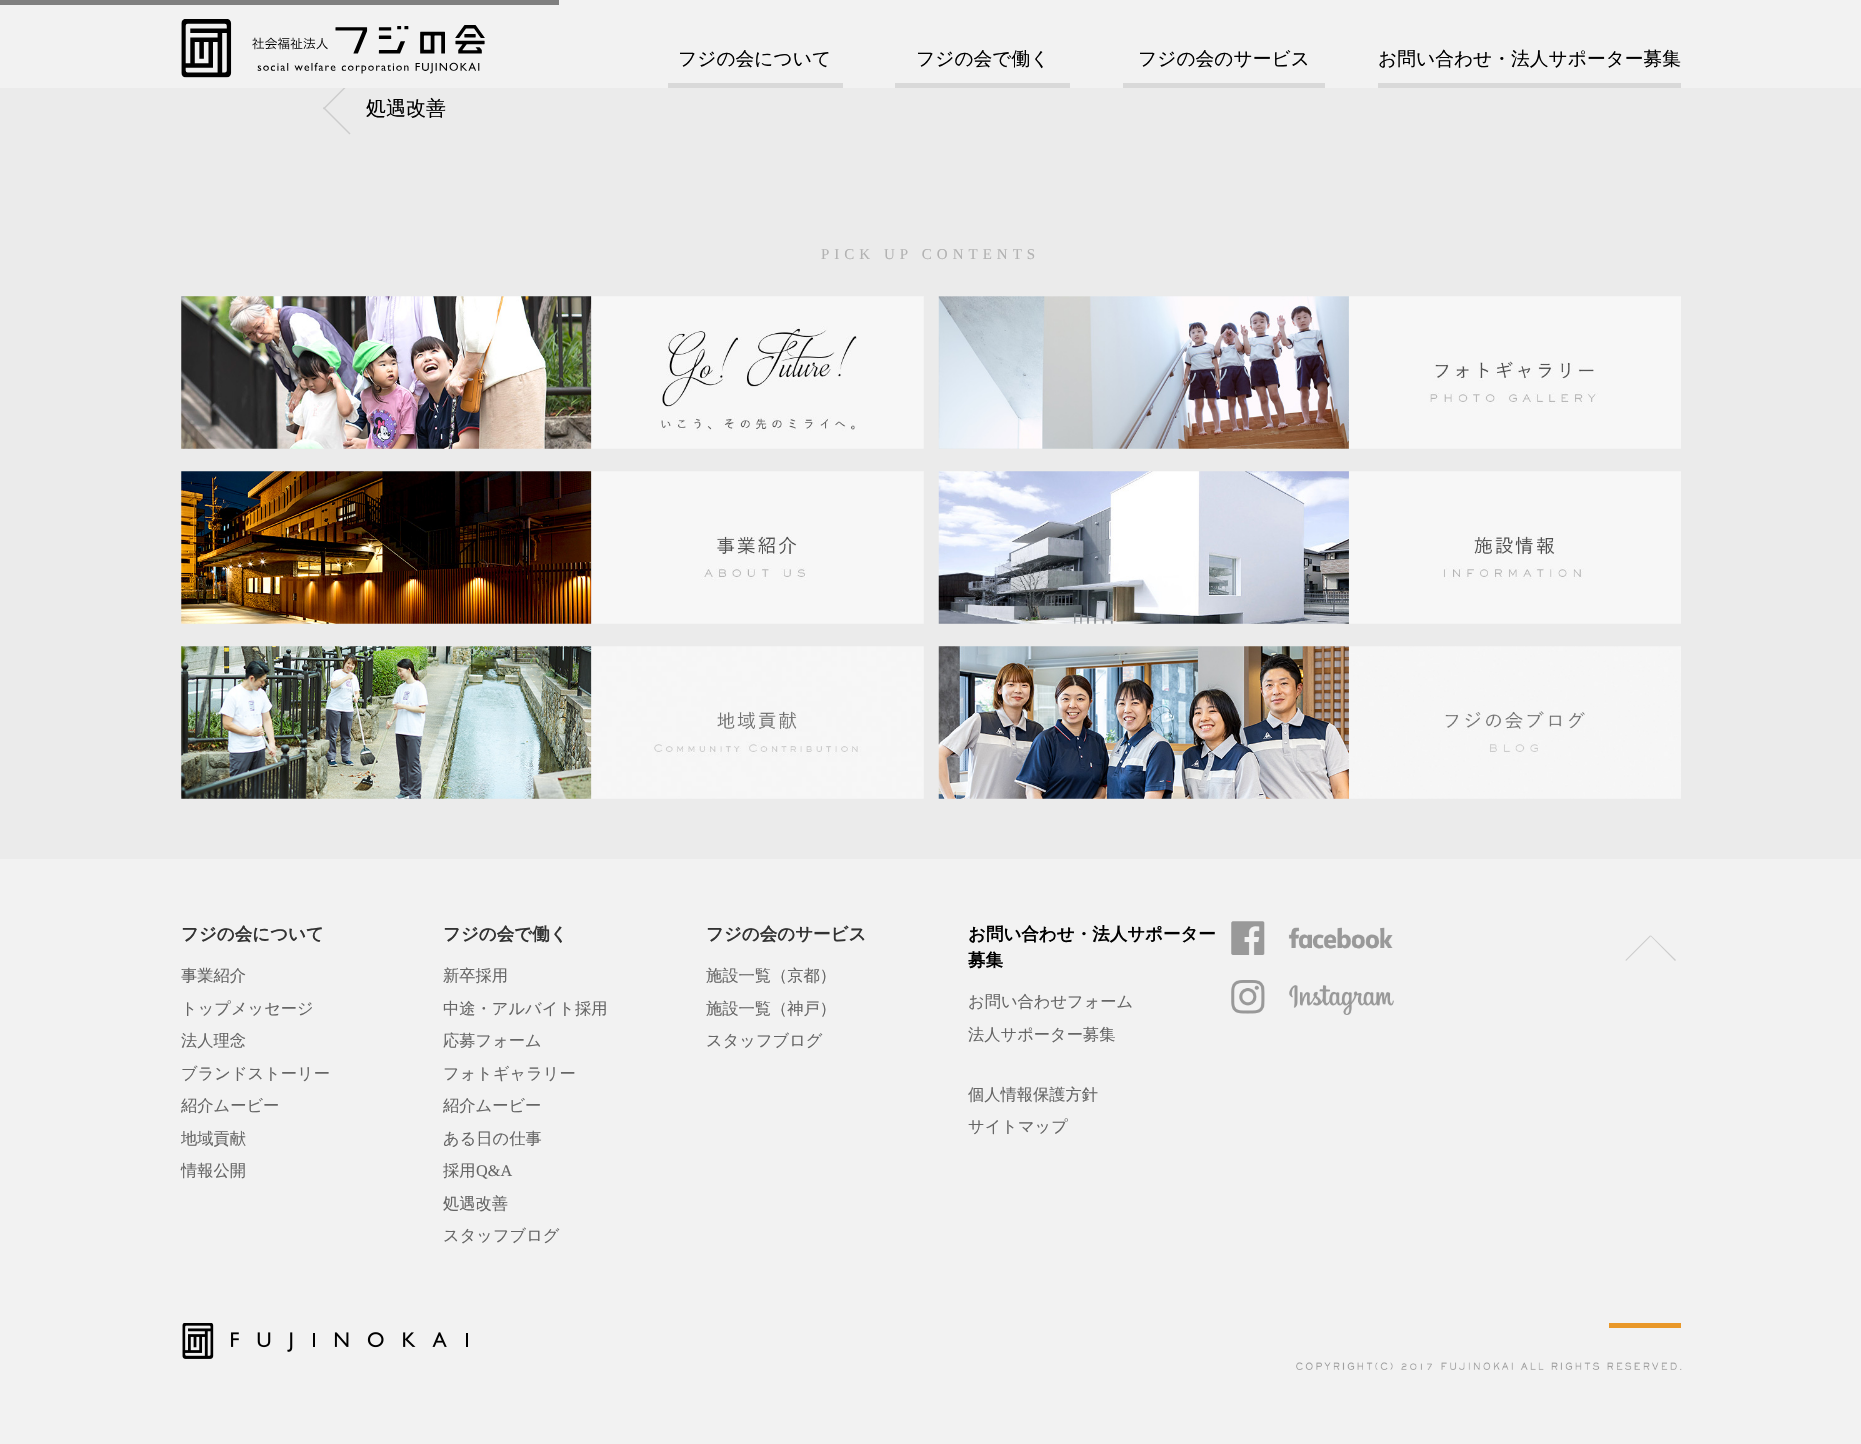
void draw(SkCanvas* canvas) {
    SkPaint paint;
    paint.setAntiAlias(true);
    auto spacedText = [&](const char* s, float x, float y, const SkFont& font, const SkPaint& ink, float letter, float word) {
        std::vector<SkGlyphID> glyphs(font.countText(s, strlen(s), SkTextEncoding::kUTF8));
        std::vector<float> xs(glyphs.size());
        font.textToGlyphs(s, strlen(s), SkTextEncoding::kUTF8, glyphs);
        font.getXPos(glyphs, xs, x);
        float extra = 0;
        for (size_t i = 0; i < glyphs.size(); i++) {
            xs[i] += extra;
            extra += letter + word * (glyphs[i] == font.unicharToGlyph(' '));
        }
        canvas->drawTextBlob(SkTextBlob::MakeFromPosHGlyphs(glyphs, xs, y, font), 0, 0, ink);
    };
    canvas->clear(0xFFF2F2F2);
    paint.setColor(0xFFEBEBEB);
    canvas->drawRect(SkRect::MakeXYWH(0, 88, 1861, 771), paint);
    paint.setColor(0xFFCCCCCC);
    canvas->drawPath(SkPathBuilder().moveTo(324, 107).lineTo(350.5f, 133.5f).lineTo(349.5f, 134.5f).lineTo(323, 108).close().detach(), paint);
    canvas->drawPath(SkPathBuilder().moveTo(323, 108.5f).lineTo(349.5f, 82).lineTo(350.5f, 83).lineTo(324, 109.5f).close().detach(), paint);
    paint.setColor(0xFFF2F2F2);
    canvas->drawRect(SkRect::MakeXYWH(343, 82, 8, 6), paint);
    paint.setColor(0xFF808080);
    canvas->drawRect(SkRect::MakeXYWH(0, 0, 559, 5), paint);
    canvas->drawImageRect(SkImages::DeferredFromEncodedData(SkData::MakeFromFileName("img1.png")), SkRect::MakeXYWH(181, 19, 304, 59), SkSamplingOptions());
    SkFont font1(fontMgr->matchFamilyStyle("WenQuanYi Zen Hei", SkFontStyle(500, SkFontStyle::kNormal_Width, SkFontStyle::kUpright_Slant)), 18.75f);
    font1.setSubpixel(true);
    paint.setColor(0xFF000000);
    canvas->drawString("フジの会について", 678, 65, font1, paint);
    paint.setColor(0xFFD9D9D9);
    canvas->drawRect(SkRect::MakeXYWH(668, 83, 175, 5), paint);
    paint.setColor(0xFF000000);
    canvas->drawString("フジの会で働く", 916, 65, font1, paint);
    paint.setColor(0xFFD9D9D9);
    canvas->drawRect(SkRect::MakeXYWH(895, 83, 175, 5), paint);
    paint.setColor(0xFF000000);
    canvas->drawString("フジの会のサービス", 1138, 65, font1, paint);
    paint.setColor(0xFFD9D9D9);
    canvas->drawRect(SkRect::MakeXYWH(1123, 83, 202, 5), paint);
    paint.setColor(0xFF000000);
    canvas->drawString("お問い合わせ・法人サポーター募集", 1378, 65, font1, paint);
    paint.setColor(0xFFD9D9D9);
    canvas->drawRect(SkRect::MakeXYWH(1378, 83, 303, 5), paint);
    SkFont font2(fontMgr->matchFamilyStyle("WenQuanYi Zen Hei", SkFontStyle(500, SkFontStyle::kNormal_Width, SkFontStyle::kUpright_Slant)), 20);
    font2.setSubpixel(true);
    paint.setColor(0xFF000000);
    canvas->drawString("処遇改善", 366, 115, font2, paint);
    SkFont font3(fontMgr->matchFamilyStyle("Liberation Serif", SkFontStyle::Normal()), 15);
    font3.setSubpixel(true);
    paint.setColor(0xFFB2B2B2);
    spacedText("PICK UP CONTENTS", 821, 259, font3, paint, 5, 0);
    canvas->drawImageRect(SkImages::DeferredFromEncodedData(SkData::MakeFromFileName("img2.png")), SkRect::MakeXYWH(181, 296, 743, 153), SkSamplingOptions());
    canvas->drawImageRect(SkImages::DeferredFromEncodedData(SkData::MakeFromFileName("img3.png")), SkRect::MakeXYWH(938, 296, 743, 153), SkSamplingOptions());
    canvas->drawImageRect(SkImages::DeferredFromEncodedData(SkData::MakeFromFileName("img4.png")), SkRect::MakeXYWH(181, 471, 743, 153), SkSamplingOptions());
    canvas->drawImageRect(SkImages::DeferredFromEncodedData(SkData::MakeFromFileName("img5.png")), SkRect::MakeXYWH(938, 471, 743, 153), SkSamplingOptions());
    canvas->drawImageRect(SkImages::DeferredFromEncodedData(SkData::MakeFromFileName("img6.png")), SkRect::MakeXYWH(181, 646, 743, 153), SkSamplingOptions());
    canvas->drawImageRect(SkImages::DeferredFromEncodedData(SkData::MakeFromFileName("img7.png")), SkRect::MakeXYWH(938, 646, 743, 153), SkSamplingOptions());
    SkFont font4(fontMgr->matchFamilyStyle("WenQuanYi Zen Hei", SkFontStyle::Bold()), 17.5f);
    font4.setSubpixel(true);
    paint.setColor(0xFF333333);
    canvas->drawString("フジの会について", 181, 940, font4, paint);
    SkFont font5(fontMgr->matchFamilyStyle("WenQuanYi Zen Hei", SkFontStyle(500, SkFontStyle::kNormal_Width, SkFontStyle::kUpright_Slant)), 16.25f);
    font5.setSubpixel(true);
    paint.setColor(0xFF666666);
    canvas->drawString("事業紹介", 181, 981, font5, paint);
    canvas->drawString("トップメッセージ", 181, 1014, font5, paint);
    canvas->drawString("法人理念", 181, 1046, font5, paint);
    canvas->drawString("ブランドストーリー", 181, 1079, font5, paint);
    canvas->drawString("紹介ムービー", 181, 1111, font5, paint);
    canvas->drawString("地域貢献", 181, 1144, font5, paint);
    canvas->drawString("情報公開", 181, 1176, font5, paint);
    paint.setColor(0xFF333333);
    canvas->drawString("フジの会で働く", 443, 940, font4, paint);
    paint.setColor(0xFF666666);
    canvas->drawString("新卒採用", 443, 981, font5, paint);
    canvas->drawString("中途・アルバイト採用", 443, 1014, font5, paint);
    canvas->drawString("応募フォーム", 443, 1046, font5, paint);
    canvas->drawString("フォトギャラリー", 443, 1079, font5, paint);
    canvas->drawString("紹介ムービー", 443, 1111, font5, paint);
    canvas->drawString("ある日の仕事", 443, 1144, font5, paint);
    canvas->drawString("採用", 443, 1176, font5, paint);
    SkFont font6(fontMgr->matchFamilyStyle("Liberation Serif", SkFontStyle::Normal()), 16.25f);
    font6.setSubpixel(true);
    canvas->drawString("Q&A", 476, 1176, font6, paint);
    canvas->drawString("処遇改善", 443, 1209, font5, paint);
    canvas->drawString("スタッフブログ", 443, 1241, font5, paint);
    paint.setColor(0xFF333333);
    canvas->drawString("フジの会のサービス", 706, 940, font4, paint);
    paint.setColor(0xFF666666);
    canvas->drawString("施設一覧（京都）", 706, 981, font5, paint);
    canvas->drawString("施設一覧（神戸）", 706, 1014, font5, paint);
    canvas->drawString("スタッフブログ", 706, 1046, font5, paint);
    paint.setColor(0xFF000000);
    canvas->drawString("お問い合わせ・法人サポーター", 968, 940, font4, paint);
    canvas->drawString("募集", 968, 966, font4, paint);
    paint.setColor(0xFF666666);
    canvas->drawString("お問い合わせフォーム", 968, 1007, font5, paint);
    canvas->drawString("法人サポーター募集", 968, 1040, font5, paint);
    canvas->drawString("個人情報保護方針", 968, 1100, font5, paint);
    canvas->drawString("サイトマップ", 968, 1132, font5, paint);
    canvas->drawImageRect(SkImages::DeferredFromEncodedData(SkData::MakeFromFileName("img8.png")), SkRect::MakeXYWH(1231, 921, 162, 34), SkSamplingOptions());
    canvas->drawImageRect(SkImages::DeferredFromEncodedData(SkData::MakeFromFileName("img9.png")), SkRect::MakeXYWH(1231, 980, 163, 35), SkSamplingOptions());
    canvas->drawImageRect(SkImages::DeferredFromEncodedData(SkData::MakeFromFileName("img10.png")), SkRect::MakeXYWH(182, 1323, 286, 36), SkSamplingOptions());
    paint.setColor(0xFFE99829);
    canvas->drawRect(SkRect::MakeXYWH(1609, 1323, 72, 5), paint);
    canvas->drawImageRect(SkImages::DeferredFromEncodedData(SkData::MakeFromFileName("img11.png")), SkRect::MakeXYWH(1296, 1362, 386, 8), SkSamplingOptions());
    paint.setColor(0xFFCCCCCC);
    canvas->drawPath(SkPathBuilder().moveTo(1625.5f, 960).lineTo(1650, 935.5f).lineTo(1651, 936).lineTo(1626, 961).close().detach(), paint);
    canvas->drawPath(SkPathBuilder().moveTo(1651, 935.5f).lineTo(1676, 960).lineTo(1675, 961).lineTo(1650.5f, 936).close().detach(), paint);
}
